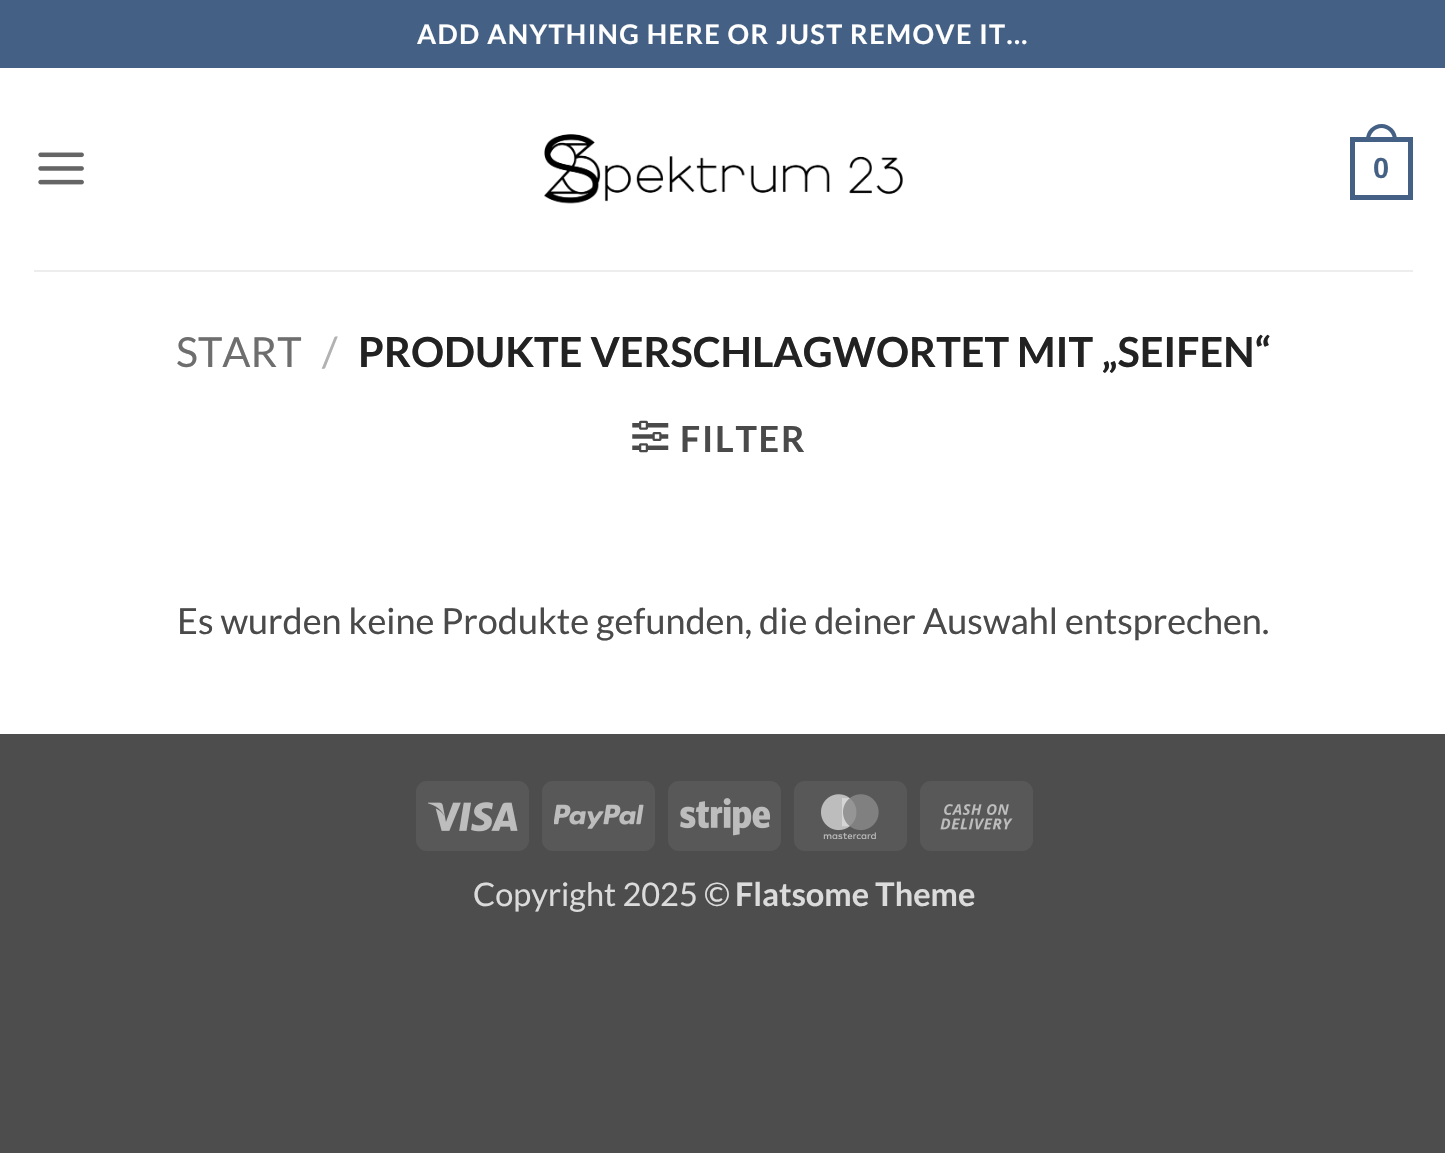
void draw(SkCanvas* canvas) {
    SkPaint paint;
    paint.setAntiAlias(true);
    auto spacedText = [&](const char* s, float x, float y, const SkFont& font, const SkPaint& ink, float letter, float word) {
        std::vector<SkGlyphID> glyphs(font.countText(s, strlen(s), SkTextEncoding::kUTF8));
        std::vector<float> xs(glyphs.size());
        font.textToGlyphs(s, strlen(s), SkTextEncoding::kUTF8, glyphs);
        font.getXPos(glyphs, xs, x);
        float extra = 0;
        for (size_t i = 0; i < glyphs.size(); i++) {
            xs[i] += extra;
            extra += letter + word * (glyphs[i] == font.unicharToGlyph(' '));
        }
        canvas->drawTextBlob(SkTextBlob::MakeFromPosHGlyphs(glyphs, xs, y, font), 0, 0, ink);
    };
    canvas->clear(0xFF4D4D4D);
    paint.setColor(0xFFFFFFFF);
    canvas->drawRect(SkRect::MakeXYWH(0, 68, 1445, 666), paint);
    paint.setColor(0xFF446084);
    canvas->drawRect(SkRect::MakeXYWH(0, 0, 1445, 68), paint);
    SkFont font1(fontMgr->matchFamilyStyle("Lato", SkFontStyle::Bold()), 27);
    font1.setSubpixel(true);
    paint.setColor(0xFFFFFFFF);
    spacedText("ADD ANYTHING HERE OR JUST REMOVE IT...", 417, 44, font1, paint, 1.35f, 0);
    canvas->drawImageRect(SkImages::DeferredFromEncodedData(SkData::MakeFromFileName("img1.png")), SkRect::MakeXYWH(38, 152, 46, 33), SkSamplingOptions());
    canvas->drawImageRect(SkImages::DeferredFromEncodedData(SkData::MakeFromFileName("img2.png")), SkRect::MakeXYWH(544, 134, 359, 70), SkSamplingOptions());
    paint.setStyle(SkPaint::kStroke_Style);
    paint.setStrokeWidth(5);
    paint.setColor(0xFF446084);
    canvas->drawRect(SkRect::MakeXYWH(1352.5f, 139.5f, 58, 58), paint);
    paint.setStyle(SkPaint::kFill_Style);
    canvas->drawPath(SkPathBuilder(SkPathFillType::kEvenOdd).moveTo(1381.5f, 124).cubicTo(1390, 124, 1397, 131, 1397, 139.5f).lineTo(1397, 142).lineTo(1366, 142).lineTo(1366, 139.5f).cubicTo(1366, 131, 1373, 124, 1381.5f, 124).close().moveTo(1381.5f, 128).cubicTo(1387.5f, 128, 1393, 133.5f, 1393, 139.5f).lineTo(1393, 142).lineTo(1370, 142).lineTo(1370, 139.5f).cubicTo(1370, 133.5f, 1375.5f, 128, 1381.5f, 128).close().detach(), paint);
    SkFont font2(fontMgr->matchFamilyStyle("Liberation Sans", SkFontStyle::Bold()), 29);
    font2.setSubpixel(true);
    canvas->drawString("0", 1373, 178, font2, paint);
    paint.setColor(0xFFEDEDED);
    canvas->drawRect(SkRect::MakeXYWH(34, 270, 1379, 2), paint);
    SkFont font3(fontMgr->matchFamilyStyle("Lato", SkFontStyle::Normal()), 41.4f);
    font3.setSubpixel(true);
    paint.setColor(0xFF6E6E6E);
    canvas->drawString("START", 176, 367, font3, paint);
    paint.setColor(0xFFB2B2B2);
    canvas->drawString("/", 322, 367, font3, paint);
    SkFont font4(fontMgr->matchFamilyStyle("Lato", SkFontStyle::Bold()), 41.4f);
    font4.setSubpixel(true);
    paint.setColor(0xFF222222);
    canvas->drawString("PRODUKTE VERSCHLAGWORTET MIT „SEIFEN“", 358, 367, font4, paint);
    canvas->drawImageRect(SkImages::DeferredFromEncodedData(SkData::MakeFromFileName("img3.png")), SkRect::MakeXYWH(632, 420, 37, 33), SkSamplingOptions());
    SkFont font5(fontMgr->matchFamilyStyle("Lato", SkFontStyle::Bold()), 36);
    font5.setSubpixel(true);
    paint.setColor(0xFF4A4A4A);
    spacedText("FILTER", 680, 452, font5, paint, 1.75f, 0);
    SkFont font6(fontMgr->matchFamilyStyle("Lato", SkFontStyle::Normal()), 36);
    font6.setSubpixel(true);
    canvas->drawString("Es wurden keine Produkte gefunden, die deiner Auswahl entsprechen.", 177, 634, font6, paint);
    paint.setColor(0xFF585858);
    canvas->drawRoundRect(SkRect::MakeXYWH(416, 781, 113, 70), 11, 11, paint);
    canvas->drawImageRect(SkImages::DeferredFromEncodedData(SkData::MakeFromFileName("img4.png")), SkRect::MakeXYWH(428, 802, 90, 30), SkSamplingOptions());
    canvas->drawRoundRect(SkRect::MakeXYWH(542, 781, 113, 70), 11, 11, paint);
    canvas->drawImageRect(SkImages::DeferredFromEncodedData(SkData::MakeFromFileName("img5.png")), SkRect::MakeXYWH(554, 804, 90, 25), SkSamplingOptions());
    canvas->drawRoundRect(SkRect::MakeXYWH(668, 781, 113, 70), 11, 11, paint);
    canvas->drawImageRect(SkImages::DeferredFromEncodedData(SkData::MakeFromFileName("img6.png")), SkRect::MakeXYWH(680, 798, 90, 38), SkSamplingOptions());
    canvas->drawRoundRect(SkRect::MakeXYWH(794, 781, 113, 70), 11, 11, paint);
    canvas->drawImageRect(SkImages::DeferredFromEncodedData(SkData::MakeFromFileName("img7.png")), SkRect::MakeXYWH(821, 794, 58, 45), SkSamplingOptions());
    canvas->drawRoundRect(SkRect::MakeXYWH(920, 781, 113, 70), 11, 11, paint);
    canvas->drawImageRect(SkImages::DeferredFromEncodedData(SkData::MakeFromFileName("img8.png")), SkRect::MakeXYWH(940, 804, 73, 26), SkSamplingOptions());
    SkFont font7(fontMgr->matchFamilyStyle("Lato", SkFontStyle::Normal()), 32.5f);
    font7.setSubpixel(true);
    paint.setColor(0xFFDBDBDB);
    canvas->drawString("Copyright 2025 ©", 473, 906, font7, paint);
    SkFont font8(fontMgr->matchFamilyStyle("Lato", SkFontStyle::Bold()), 32.5f);
    font8.setSubpixel(true);
    canvas->drawString("Flatsome Theme", 735, 906, font8, paint);
}
